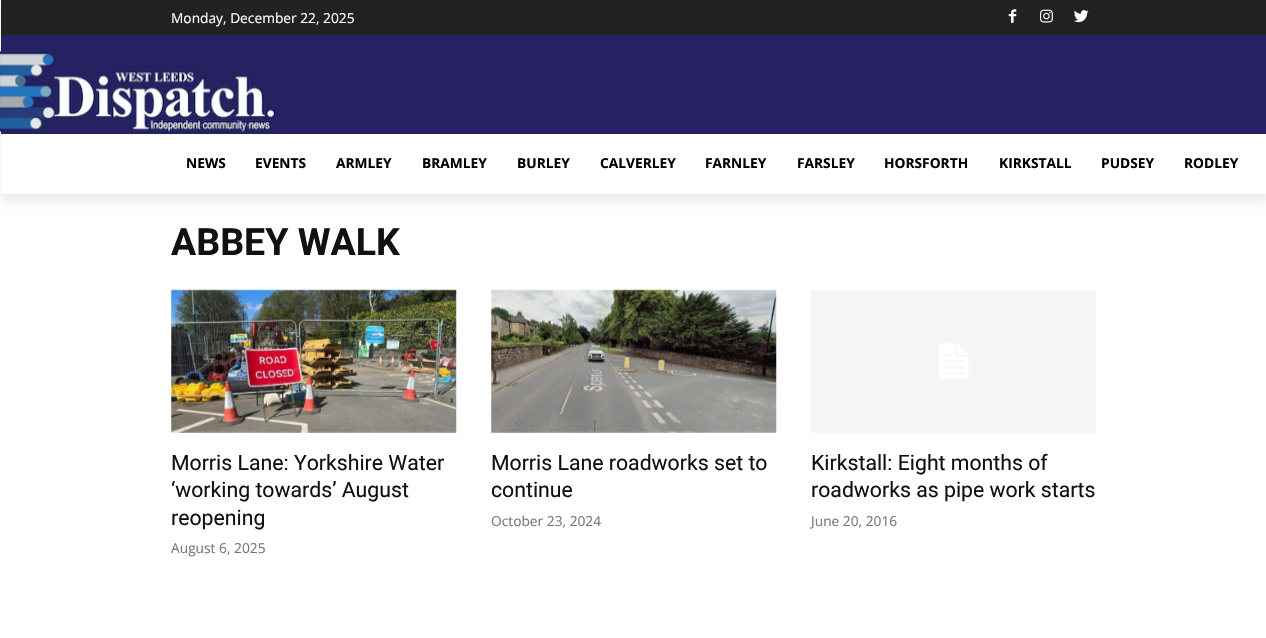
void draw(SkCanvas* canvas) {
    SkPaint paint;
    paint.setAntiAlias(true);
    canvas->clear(0xFFFFFFFF);
    paint.setColor(0xFF252162);
    canvas->drawRect(SkRect::MakeXYWH(1, 35, 1265, 99), paint);
    canvas->drawImageRect(SkImages::DeferredFromEncodedData(SkData::MakeFromFileName("img4.png")), SkRect::MakeXYWH(0, 51, 275, 82), SkSamplingOptions());
    canvas->save();
    canvas->clipPath(SkPathBuilder(SkPathFillType::kEvenOdd).moveTo(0, 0).lineTo(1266, 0).lineTo(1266, 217).lineTo(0, 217).close().moveTo(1, 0).lineTo(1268, 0).lineTo(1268, 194).lineTo(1, 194).close().detach(), true);
    paint.setColor(0x14000000);
    paint.setMaskFilter(SkMaskFilter::MakeBlur(kNormal_SkBlurStyle, 5));
    canvas->drawRect(SkRect::MakeXYWH(1, 8, 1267, 193), paint);
    paint.setMaskFilter(nullptr);
    canvas->restore();
    paint.setColor(0xFF222222);
    canvas->drawRect(SkRect::MakeXYWH(1, 0, 1265, 35), paint);
    SkFont font1(fontMgr->matchFamilyStyle("Open Sans", SkFontStyle::Normal()), 13.75f);
    font1.setSubpixel(true);
    paint.setColor(0xFFFFFFFF);
    canvas->drawString("Monday, December 22, 2025", 171, 23, font1, paint);
    canvas->drawImageRect(SkImages::DeferredFromEncodedData(SkData::MakeFromFileName("img1.png")), SkRect::MakeXYWH(1008, 9, 9, 14), SkSamplingOptions());
    canvas->drawImageRect(SkImages::DeferredFromEncodedData(SkData::MakeFromFileName("img2.png")), SkRect::MakeXYWH(1040, 9, 13, 14), SkSamplingOptions());
    canvas->drawImageRect(SkImages::DeferredFromEncodedData(SkData::MakeFromFileName("img3.png")), SkRect::MakeXYWH(1074, 10, 15, 13), SkSamplingOptions());
    SkFont font2(fontMgr->matchFamilyStyle("Open Sans", SkFontStyle::Bold()), 13.75f);
    font2.setSubpixel(true);
    paint.setColor(0xFF000000);
    canvas->drawString("NEWS", 186, 168, font2, paint);
    canvas->drawString("EVENTS", 255, 168, font2, paint);
    canvas->drawString("ARMLEY", 336, 168, font2, paint);
    canvas->drawString("BRAMLEY", 422, 168, font2, paint);
    canvas->drawString("BURLEY", 517, 168, font2, paint);
    canvas->drawString("CALVERLEY", 600, 168, font2, paint);
    canvas->drawString("FARNLEY", 705, 168, font2, paint);
    canvas->drawString("FARSLEY", 797, 168, font2, paint);
    canvas->drawString("HORSFORTH", 884, 168, font2, paint);
    canvas->drawString("KIRKSTALL", 999, 168, font2, paint);
    canvas->drawString("PUDSEY", 1101, 168, font2, paint);
    canvas->drawString("RODLEY", 1184, 168, font2, paint);
    SkFont font3(fontMgr->matchFamilyStyle("Roboto", SkFontStyle::Bold()), 37.5f);
    font3.setSubpixel(true);
    paint.setColor(0xFF111111);
    canvas->drawString("ABBEY WALK", 171, 255, font3, paint);
    canvas->drawImageRect(SkImages::DeferredFromEncodedData(SkData::MakeFromFileName("img5.png")), SkRect::MakeXYWH(171, 289, 286, 144), SkSamplingOptions());
    SkFont font4(fontMgr->matchFamilyStyle("Roboto", SkFontStyle::Normal()), 21.25f);
    font4.setSubpixel(true);
    canvas->drawString("Morris Lane: Yorkshire Water", 171, 470, font4, paint);
    canvas->drawString("‘working towards’ August", 171, 497, font4, paint);
    canvas->drawString("reopening", 171, 525, font4, paint);
    paint.setColor(0xFF767676);
    canvas->drawString("August 6, 2025", 171, 553, font1, paint);
    canvas->drawImageRect(SkImages::DeferredFromEncodedData(SkData::MakeFromFileName("img6.png")), SkRect::MakeXYWH(491, 289, 286, 144), SkSamplingOptions());
    paint.setColor(0xFF111111);
    canvas->drawString("Morris Lane roadworks set to", 491, 470, font4, paint);
    canvas->drawString("continue", 491, 497, font4, paint);
    paint.setColor(0xFF767676);
    canvas->drawString("October 23, 2024", 491, 526, font1, paint);
    canvas->drawImageRect(SkImages::DeferredFromEncodedData(SkData::MakeFromFileName("img7.png")), SkRect::MakeXYWH(811, 290, 285, 143), SkSamplingOptions());
    paint.setColor(0xFF111111);
    canvas->drawString("Kirkstall: Eight months of", 811, 470, font4, paint);
    canvas->drawString("roadworks as pipe work starts", 811, 497, font4, paint);
    paint.setColor(0xFF767676);
    canvas->drawString("June 20, 2016", 811, 526, font1, paint);
}
